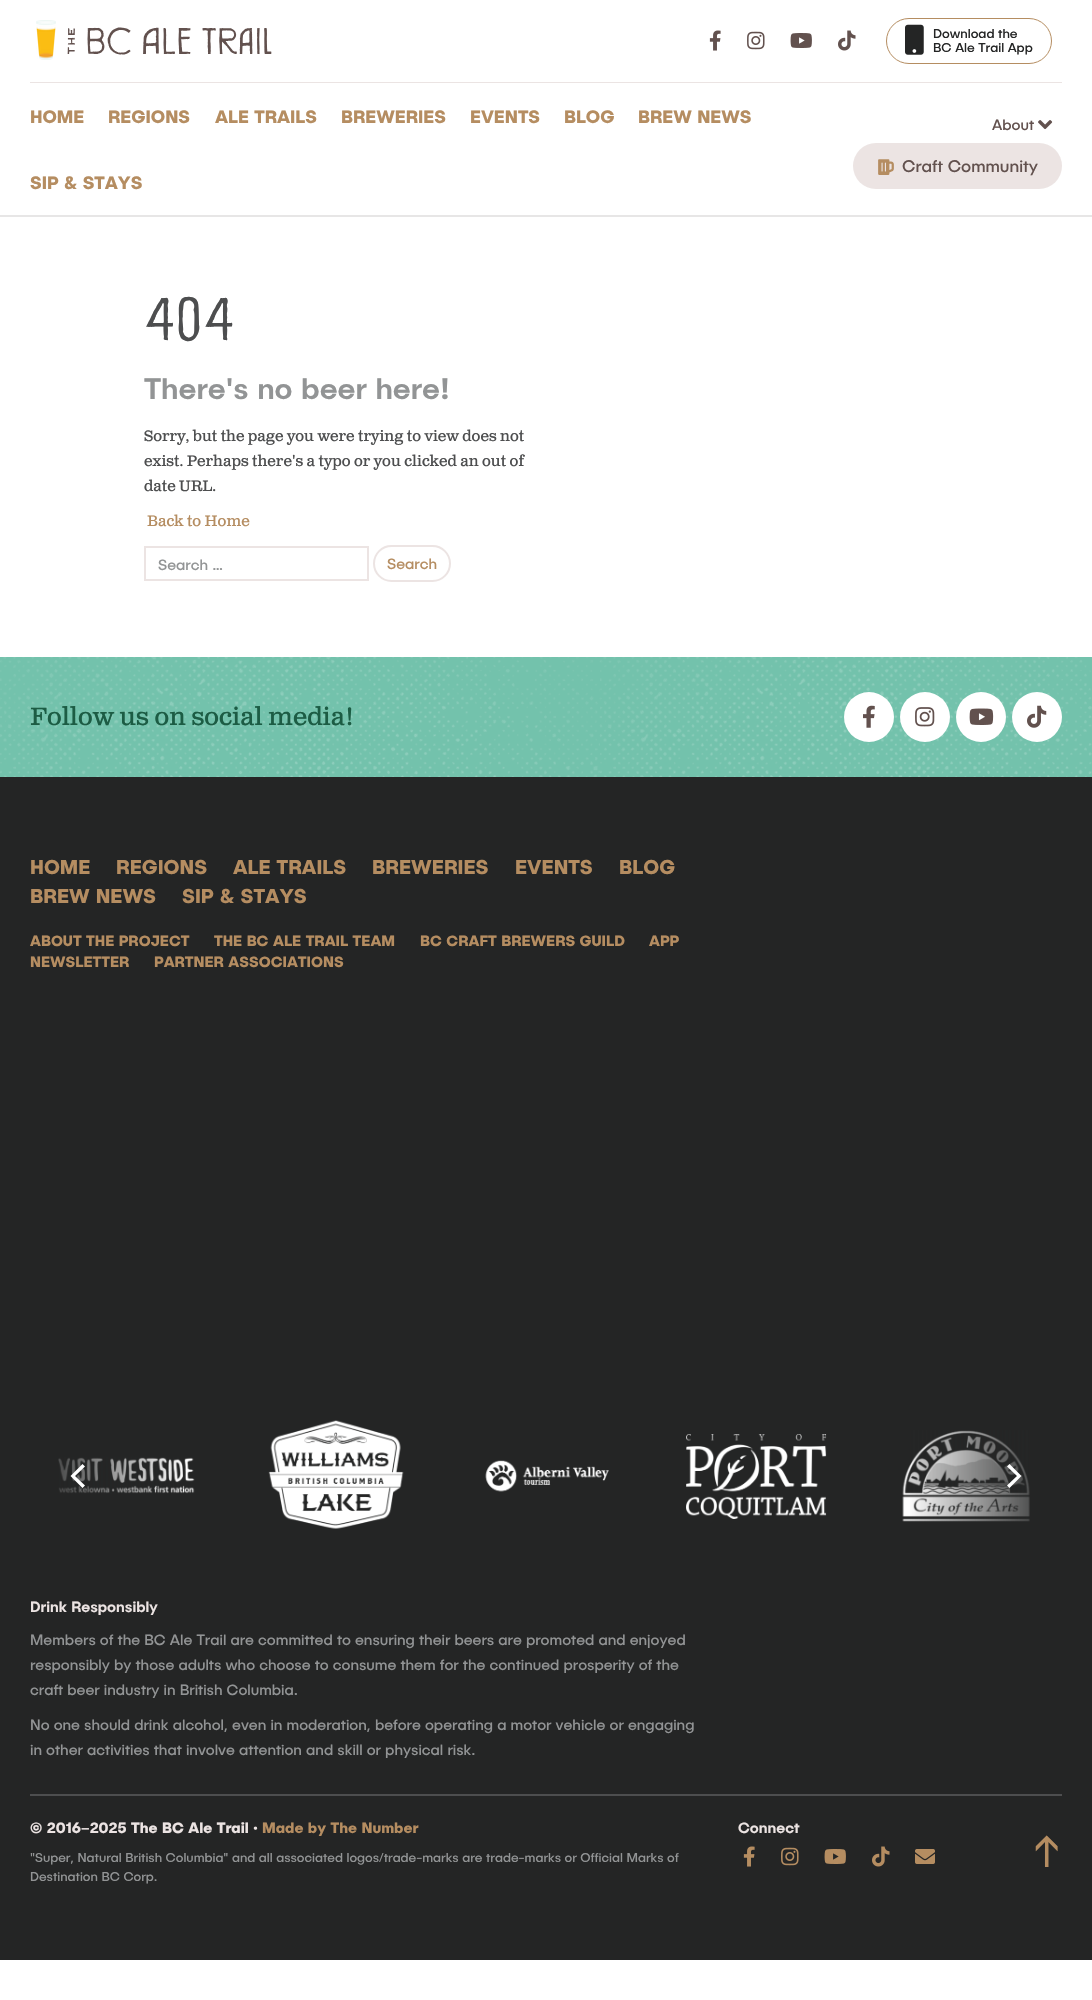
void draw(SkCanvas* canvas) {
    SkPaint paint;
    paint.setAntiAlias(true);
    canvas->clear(0xFFFFFFFF);
    paint.setColor(0xFFE7E6E6);
    canvas->drawRect(SkRect::MakeXYWH(0, 215, 1092, 2), paint);
    paint.setColor(0xFFEBE4E3);
    canvas->drawRect(SkRect::MakeXYWH(30, 82, 1032, 1), paint);
    canvas->drawImageRect(SkImages::DeferredFromEncodedData(SkData::MakeFromFileName("img1.png")), SkRect::MakeXYWH(36, 20, 20, 40), SkSamplingOptions());
    canvas->drawImageRect(SkImages::DeferredFromEncodedData(SkData::MakeFromFileName("img2.png")), SkRect::MakeXYWH(67, 27, 205, 28), SkSamplingOptions());
    canvas->drawImageRect(SkImages::DeferredFromEncodedData(SkData::MakeFromFileName("img3.png")), SkRect::MakeXYWH(709, 30, 12, 21), SkSamplingOptions());
    canvas->drawImageRect(SkImages::DeferredFromEncodedData(SkData::MakeFromFileName("img4.png")), SkRect::MakeXYWH(747, 31, 18, 19), SkSamplingOptions());
    canvas->drawImageRect(SkImages::DeferredFromEncodedData(SkData::MakeFromFileName("img5.png")), SkRect::MakeXYWH(790, 33, 22, 15), SkSamplingOptions());
    canvas->drawImageRect(SkImages::DeferredFromEncodedData(SkData::MakeFromFileName("img6.png")), SkRect::MakeXYWH(838, 30, 18, 21), SkSamplingOptions());
    paint.setStyle(SkPaint::kStroke_Style);
    paint.setStrokeWidth(1);
    paint.setColor(0xFFB58D61);
    canvas->drawRoundRect(SkRect::MakeXYWH(886.5f, 18.5f, 165, 45), 22.5f, 22.5f, paint);
    canvas->drawImageRect(SkImages::DeferredFromEncodedData(SkData::MakeFromFileName("img7.png")), SkRect::MakeXYWH(905, 24, 19, 31), SkSamplingOptions());
    SkFont font1(fontMgr->matchFamilyStyle("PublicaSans", SkFontStyle::Normal()), 13);
    font1.setSubpixel(true);
    paint.setStyle(SkPaint::kFill_Style);
    paint.setColor(0xFF242525);
    canvas->drawString("Download the", 933, 38, font1, paint);
    canvas->drawString("BC Ale Trail App", 933, 52, font1, paint);
    SkFont font2(fontMgr->matchFamilyStyle("PublicaSans", SkFontStyle::Bold()), 18);
    font2.setSubpixel(true);
    paint.setColor(0xFFB58D61);
    canvas->drawString("HOME", 30, 123, font2, paint);
    canvas->drawString("REGIONS", 108, 123, font2, paint);
    canvas->drawString("ALE TRAILS", 215, 123, font2, paint);
    canvas->drawString("BREWERIES", 341, 123, font2, paint);
    canvas->drawString("EVENTS", 470, 123, font2, paint);
    canvas->drawString("BLOG", 564, 123, font2, paint);
    canvas->drawString("BREW NEWS", 638, 123, font2, paint);
    canvas->drawString("SIP & STAYS", 30, 189, font2, paint);
    SkFont font3(fontMgr->matchFamilyStyle("PublicaSans", SkFontStyle::Normal()), 15);
    font3.setSubpixel(true);
    paint.setColor(0xFF62514E);
    canvas->drawString("About", 992, 130, font3, paint);
    canvas->drawImageRect(SkImages::DeferredFromEncodedData(SkData::MakeFromFileName("img8.png")), SkRect::MakeXYWH(1038, 120, 15, 10), SkSamplingOptions());
    paint.setColor(0xFFECE4E3);
    canvas->drawRoundRect(SkRect::MakeXYWH(853, 143, 209, 46), 23, 23, paint);
    canvas->drawImageRect(SkImages::DeferredFromEncodedData(SkData::MakeFromFileName("img9.png")), SkRect::MakeXYWH(878, 159, 16, 16), SkSamplingOptions());
    SkFont font4(fontMgr->matchFamilyStyle("PublicaSans", SkFontStyle::Normal()), 17);
    font4.setSubpixel(true);
    paint.setColor(0xFF62514E);
    canvas->drawString("Craft Community", 902, 172, font4, paint);
    SkFont font5(fontMgr->matchFamilyStyle("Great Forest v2", SkFontStyle::Normal()), 45);
    font5.setSubpixel(true);
    paint.setColor(0xFF4D4E4F);
    canvas->drawString("404", 144, 340, font5, paint);
    SkFont font6(fontMgr->matchFamilyStyle("Publica Sans", SkFontStyle(500, SkFontStyle::kNormal_Width, SkFontStyle::kUpright_Slant)), 30);
    font6.setSubpixel(true);
    paint.setColor(0xFF929495);
    canvas->drawString("There's no beer here!", 144, 399, font6, paint);
    SkFont font7(fontMgr->matchFamilyStyle("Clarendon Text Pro", SkFontStyle::Normal()), 15);
    font7.setSubpixel(true);
    paint.setColor(0xFF4D4E4F);
    canvas->drawString("Sorry, but the page you were trying to view does not", 144, 441, font7, paint);
    canvas->drawString("exist. Perhaps there's a typo or you clicked an out of", 144, 466, font7, paint);
    canvas->drawString("date URL.", 144, 491, font7, paint);
    paint.setColor(0xFFB58D61);
    canvas->drawString("Back to Home", 147, 526, font7, paint);
    paint.setStyle(SkPaint::kStroke_Style);
    paint.setStrokeWidth(2);
    paint.setColor(0xFFECE4E3);
    canvas->drawRect(SkRect::MakeXYWH(145, 547, 223, 33), paint);
    paint.setStyle(SkPaint::kFill_Style);
    paint.setColor(0xFF929495);
    canvas->drawString("Search …", 158, 570, font3, paint);
    paint.setStyle(SkPaint::kStroke_Style);
    paint.setColor(0xFFECE4E3);
    canvas->drawRoundRect(SkRect::MakeXYWH(374, 546, 76, 35), 17.5f, 17.5f, paint);
    paint.setStyle(SkPaint::kFill_Style);
    paint.setColor(0xFFB58D61);
    canvas->drawString("Search", 387, 569, font3, paint);
    paint.setColor(0xFF73C2AC);
    canvas->drawRect(SkRect::MakeXYWH(0, 657, 1092, 120), paint);
    canvas->drawImageRect(SkImages::DeferredFromEncodedData(SkData::MakeFromFileName("img10.png")), SkRect::MakeXYWH(0, 657, 1092, 120), SkSamplingOptions());
    SkFont font8(fontMgr->matchFamilyStyle("Clarendon Text Pro", SkFontStyle::Normal()), 25);
    font8.setSubpixel(true);
    paint.setColor(0xFF1C5C44);
    canvas->drawString("Follow us on social media!", 30, 725, font8, paint);
    paint.setColor(0xFFFFFFFF);
    canvas->drawCircle(869, 717, 25, paint);
    canvas->drawImageRect(SkImages::DeferredFromEncodedData(SkData::MakeFromFileName("img11.png")), SkRect::MakeXYWH(863, 705, 12, 23), SkSamplingOptions());
    canvas->drawCircle(925, 717, 25, paint);
    canvas->drawImageRect(SkImages::DeferredFromEncodedData(SkData::MakeFromFileName("img12.png")), SkRect::MakeXYWH(915, 707, 20, 20), SkSamplingOptions());
    canvas->drawCircle(981, 717, 25, paint);
    canvas->drawImageRect(SkImages::DeferredFromEncodedData(SkData::MakeFromFileName("img13.png")), SkRect::MakeXYWH(969, 708, 25, 17), SkSamplingOptions());
    canvas->drawCircle(1037, 717, 25, paint);
    canvas->drawImageRect(SkImages::DeferredFromEncodedData(SkData::MakeFromFileName("img14.png")), SkRect::MakeXYWH(1027, 705, 20, 23), SkSamplingOptions());
    paint.setColor(0xFF242525);
    canvas->drawRect(SkRect::MakeXYWH(0, 777, 1092, 1183), paint);
    SkFont font9(fontMgr->matchFamilyStyle("PublicaSans", SkFontStyle::Bold()), 20);
    font9.setSubpixel(true);
    paint.setColor(0xFFB58D61);
    canvas->drawString("HOME", 30, 874, font9, paint);
    canvas->drawString("REGIONS", 116, 874, font9, paint);
    canvas->drawString("ALE TRAILS", 233, 874, font9, paint);
    canvas->drawString("BREWERIES", 372, 874, font9, paint);
    canvas->drawString("EVENTS", 515, 874, font9, paint);
    canvas->drawString("BLOG", 619, 874, font9, paint);
    canvas->drawString("BREW NEWS", 30, 903, font9, paint);
    canvas->drawString("SIP & STAYS", 182, 903, font9, paint);
    SkFont font10(fontMgr->matchFamilyStyle("PublicaSans", SkFontStyle::Bold()), 15);
    font10.setSubpixel(true);
    canvas->drawString("ABOUT THE PROJECT", 30, 946, font10, paint);
    canvas->drawString("THE BC ALE TRAIL TEAM", 214, 946, font10, paint);
    canvas->drawString("BC CRAFT BREWERS GUILD", 420, 946, font10, paint);
    canvas->drawString("APP", 649, 946, font10, paint);
    canvas->drawString("NEWSLETTER", 30, 967, font10, paint);
    canvas->drawString("PARTNER ASSOCIATIONS", 154, 967, font10, paint);
    canvas->drawImageRect(SkImages::DeferredFromEncodedData(SkData::MakeFromFileName("img15.png")), SkRect::MakeXYWH(58, 1457, 137, 37), SkSamplingOptions());
    canvas->drawImageRect(SkImages::DeferredFromEncodedData(SkData::MakeFromFileName("img16.png")), SkRect::MakeXYWH(268, 1420, 136, 109), SkSamplingOptions());
    canvas->drawImageRect(SkImages::DeferredFromEncodedData(SkData::MakeFromFileName("img17.png")), SkRect::MakeXYWH(485, 1460, 124, 32), SkSamplingOptions());
    canvas->drawImageRect(SkImages::DeferredFromEncodedData(SkData::MakeFromFileName("img18.png")), SkRect::MakeXYWH(686, 1434, 141, 85), SkSamplingOptions());
    canvas->drawImageRect(SkImages::DeferredFromEncodedData(SkData::MakeFromFileName("img19.png")), SkRect::MakeXYWH(902, 1430, 128, 92), SkSamplingOptions());
    {
        const SkColor colors[] = {0xFF242525, 0x00242525};
        const float stops[] = {0, 1};
        const SkPoint ends[] = {{30, 1476}, {185, 1476}};
        paint.setShader(SkGradientShader::MakeLinear(ends, colors, stops, 2, SkTileMode::kClamp));
        paint.setAlpha(255);
    }
    canvas->drawRect(SkRect::MakeXYWH(58, 1457, 124, 37), paint);
    {
        const SkColor colors[] = {0xFF242525, 0x00242525};
        const float stops[] = {0, 1};
        const SkPoint ends[] = {{1062, 1476}, {907, 1476}};
        paint.setShader(SkGradientShader::MakeLinear(ends, colors, stops, 2, SkTileMode::kClamp));
        paint.setAlpha(255);
    }
    canvas->drawRect(SkRect::MakeXYWH(910, 1430, 120, 92), paint);
    paint.setShader(nullptr);
    paint.setColor(0xFFFFFFFF);
    canvas->drawPath(SkPathBuilder().moveTo(70.5f, 1476).lineTo(82.5f, 1488).lineTo(85, 1485.5f).lineTo(75, 1476).lineTo(85, 1466.5f).lineTo(82.5f, 1464).close().detach(), paint);
    canvas->drawPath(SkPathBuilder().moveTo(1021.5f, 1476).lineTo(1009.5f, 1464).lineTo(1007, 1466.5f).lineTo(1017, 1476).lineTo(1007, 1485.5f).lineTo(1009.5f, 1488).close().detach(), paint);
    SkFont font11(fontMgr->matchFamilyStyle("Publica Sans", SkFontStyle(500, SkFontStyle::kNormal_Width, SkFontStyle::kUpright_Slant)), 15);
    font11.setSubpixel(true);
    paint.setColor(0xFFECE4E3);
    canvas->drawString("Drink Responsibly", 30, 1612, font11, paint);
    paint.setColor(0xFF929495);
    canvas->drawString("Members of the BC Ale Trail are committed to ensuring their beers are promoted and enjoyed", 30, 1645, font3, paint);
    canvas->drawString("responsibly by those adults who choose to consume them for the continued prosperity of the", 30, 1670, font3, paint);
    canvas->drawString("craft beer industry in British Columbia.", 30, 1695, font3, paint);
    canvas->drawString("No one should drink alcohol, even in moderation, before operating a motor vehicle or engaging", 30, 1730, font3, paint);
    canvas->drawString("in other activities that involve attention and skill or physical risk.", 30, 1755, font3, paint);
    paint.setColor(0xFF4D4E4F);
    canvas->drawRect(SkRect::MakeXYWH(30, 1794, 1032, 2), paint);
    paint.setColor(0xFFECE4E3);
    canvas->drawString("© 2016–2025 The BC Ale Trail ·", 30, 1833, font10, paint);
    paint.setColor(0xFFB58D61);
    canvas->drawString("Made by The Number", 262, 1833, font10, paint);
    SkFont font12(fontMgr->matchFamilyStyle("PublicaSans", SkFontStyle::Normal()), 12.9f);
    font12.setSubpixel(true);
    paint.setColor(0xFF929495);
    canvas->drawString("\"Super, Natural British Columbia\" and all associated logos/trade-marks are trade-marks or Official Marks of", 30, 1862, font12, paint);
    canvas->drawString("Destination BC Corp.", 30, 1881, font12, paint);
    paint.setColor(0xFFECE4E3);
    canvas->drawString("Connect", 738, 1833, font11, paint);
    canvas->drawImageRect(SkImages::DeferredFromEncodedData(SkData::MakeFromFileName("img20.png")), SkRect::MakeXYWH(743, 1846, 12, 21), SkSamplingOptions());
    canvas->drawImageRect(SkImages::DeferredFromEncodedData(SkData::MakeFromFileName("img21.png")), SkRect::MakeXYWH(781, 1847, 18, 19), SkSamplingOptions());
    canvas->drawImageRect(SkImages::DeferredFromEncodedData(SkData::MakeFromFileName("img22.png")), SkRect::MakeXYWH(824, 1849, 22, 15), SkSamplingOptions());
    canvas->drawImageRect(SkImages::DeferredFromEncodedData(SkData::MakeFromFileName("img23.png")), SkRect::MakeXYWH(872, 1846, 18, 21), SkSamplingOptions());
    canvas->drawImageRect(SkImages::DeferredFromEncodedData(SkData::MakeFromFileName("img24.png")), SkRect::MakeXYWH(915, 1849, 20, 15), SkSamplingOptions());
    SkFont font13(fontMgr->matchFamilyStyle("PublicaSans", SkFontStyle::Normal()), 45);
    font13.setSubpixel(true);
    paint.setColor(0xFFB58D61);
    canvas->drawString("↑", 1034, 1867, font13, paint);
}
